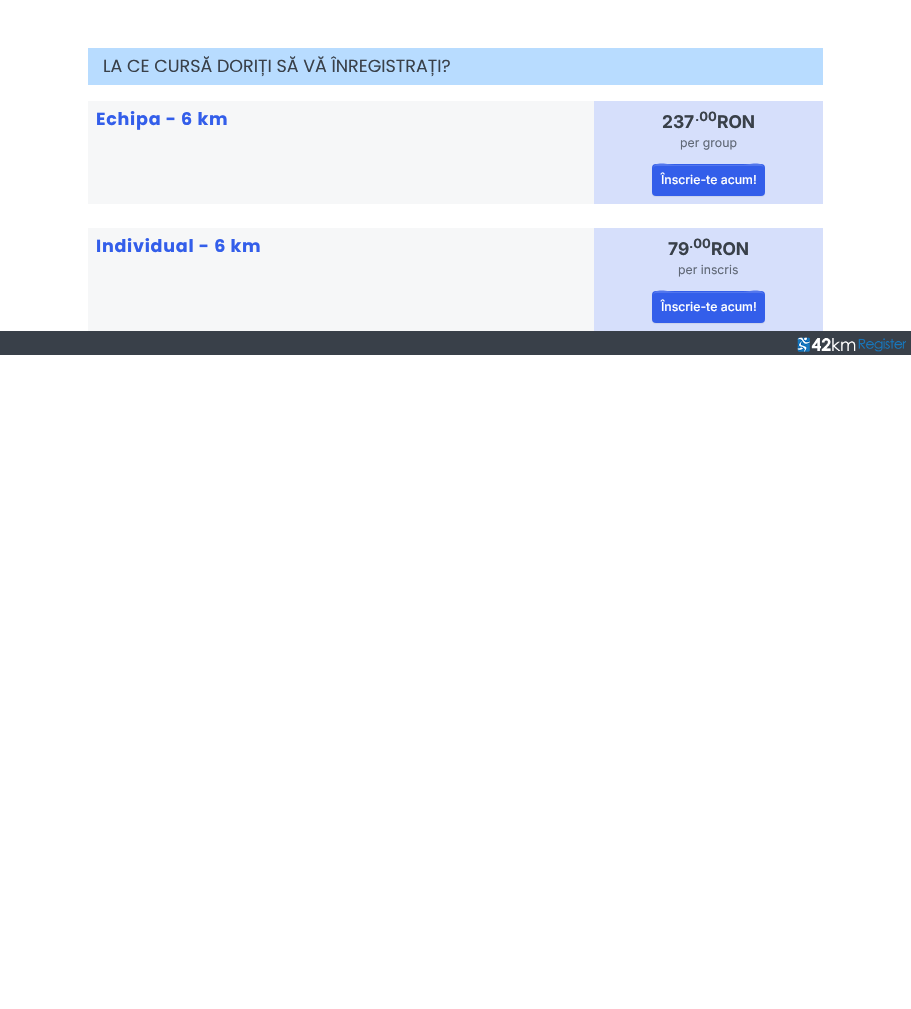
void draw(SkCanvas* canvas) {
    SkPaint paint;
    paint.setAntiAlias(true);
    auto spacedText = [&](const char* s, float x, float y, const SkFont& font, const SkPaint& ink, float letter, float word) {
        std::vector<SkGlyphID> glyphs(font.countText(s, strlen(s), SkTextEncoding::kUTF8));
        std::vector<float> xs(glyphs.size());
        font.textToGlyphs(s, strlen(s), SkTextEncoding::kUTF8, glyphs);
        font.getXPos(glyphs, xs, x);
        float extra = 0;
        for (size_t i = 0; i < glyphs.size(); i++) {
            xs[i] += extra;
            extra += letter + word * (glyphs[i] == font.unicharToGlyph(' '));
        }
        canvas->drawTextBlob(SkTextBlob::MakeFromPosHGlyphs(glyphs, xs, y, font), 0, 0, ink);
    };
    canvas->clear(0xFFFFFFFF);
    paint.setColor(0xFFB8DCFF);
    canvas->drawRect(SkRect::MakeXYWH(88, 48, 735, 37), paint);
    SkFont font1(fontMgr->matchFamilyStyle("Poppins", SkFontStyle::Normal()), 17.5f);
    font1.setSubpixel(true);
    paint.setColor(0xFF394049);
    canvas->drawString("LA CE CURSĂ DORIȚI SĂ VĂ ÎNREGISTRAȚI?", 103, 72, font1, paint);
    paint.setColor(0xFFF6F7F8);
    canvas->drawRect(SkRect::MakeXYWH(88, 101, 506, 103), paint);
    SkFont font2(fontMgr->matchFamilyStyle("Poppins", SkFontStyle::Bold()), 17.5f);
    font2.setSubpixel(true);
    paint.setColor(0xFF335EEA);
    spacedText("Echipa - 6 km", 96, 125, font2, paint, 0.75f, 0);
    paint.setColor(0xFFD6DFFB);
    canvas->drawRect(SkRect::MakeXYWH(594, 101, 229, 103), paint);
    SkFont font3(fontMgr->matchFamilyStyle("Inter", SkFontStyle::Bold()), 17.5f);
    font3.setSubpixel(true);
    paint.setColor(0xFF394049);
    canvas->drawString("237", 662, 128, font3, paint);
    SkFont font4(fontMgr->matchFamilyStyle("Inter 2", SkFontStyle::Bold()), 13);
    font4.setSubpixel(true);
    canvas->drawString(".00", 695, 121, font4, paint);
    canvas->drawString("RON", 717, 128, font3, paint);
    SkFont font5(fontMgr->matchFamilyStyle("Inter", SkFontStyle::Normal()), 12.25f);
    font5.setSubpixel(true);
    paint.setColor(0xFF606876);
    canvas->drawString("per group", 680, 147, font5, paint);
    paint.setColor(0x1221181C);
    paint.setMaskFilter(SkMaskFilter::MakeBlur(kNormal_SkBlurStyle, 0.5f));
    canvas->drawRoundRect(SkRect::MakeXYWH(652, 165, 113, 32), 4, 4, paint);
    paint.setMaskFilter(nullptr);
    paint.setColor(0xFF335EEA);
    canvas->drawRoundRect(SkRect::MakeXYWH(652, 164, 113, 32), 4, 4, paint);
    paint.setColor(0xFF5276ED);
    canvas->drawPath(SkPathBuilder().moveTo(656, 166).lineTo(761, 166).cubicTo(763, 166, 764, 167, 764, 169).cubicTo(764, 160, 746, 165, 744, 165).lineTo(674, 165).cubicTo(671, 165, 653, 160, 653, 169).cubicTo(653, 167, 654, 166, 656, 166).close().detach(), paint);
    SkFont font6(fontMgr->matchFamilyStyle("Inter", SkFontStyle(500, SkFontStyle::kNormal_Width, SkFontStyle::kUpright_Slant)), 12.25f);
    font6.setSubpixel(true);
    paint.setColor(0xFFFFFFFF);
    canvas->drawString("Înscrie-te acum!", 661, 184, font6, paint);
    paint.setColor(0xFFF6F7F8);
    canvas->drawRect(SkRect::MakeXYWH(88, 228, 506, 103), paint);
    paint.setColor(0xFF335EEA);
    spacedText("Individual - 6 km", 96, 252, font2, paint, 0.75f, 0);
    paint.setColor(0xFFD6DFFB);
    canvas->drawRect(SkRect::MakeXYWH(594, 228, 229, 103), paint);
    paint.setColor(0xFF394049);
    canvas->drawString("79", 668, 255, font3, paint);
    canvas->drawString(".00", 689, 248, font4, paint);
    canvas->drawString("RON", 711, 255, font3, paint);
    paint.setColor(0xFF606876);
    canvas->drawString("per inscris", 678, 274, font5, paint);
    paint.setColor(0x1221181C);
    paint.setMaskFilter(SkMaskFilter::MakeBlur(kNormal_SkBlurStyle, 0.5f));
    canvas->drawRoundRect(SkRect::MakeXYWH(652, 292, 113, 32), 4, 4, paint);
    paint.setMaskFilter(nullptr);
    paint.setColor(0xFF335EEA);
    canvas->drawRoundRect(SkRect::MakeXYWH(652, 291, 113, 32), 4, 4, paint);
    paint.setColor(0xFF5276ED);
    canvas->drawPath(SkPathBuilder().moveTo(656, 293).lineTo(761, 293).cubicTo(763, 293, 764, 294, 764, 296).cubicTo(764, 287, 746, 292, 744, 292).lineTo(674, 292).cubicTo(671, 292, 653, 287, 653, 296).cubicTo(653, 294, 654, 293, 656, 293).close().detach(), paint);
    paint.setColor(0xFFFFFFFF);
    canvas->drawString("Înscrie-te acum!", 661, 311, font6, paint);
    paint.setColor(0xFF394049);
    canvas->drawRect(SkRect::MakeXYWH(0, 331, 911, 24), paint);
    canvas->drawImageRect(SkImages::DeferredFromEncodedData(SkData::MakeFromFileName("img1.png")), SkRect::MakeXYWH(797, 337, 109, 15), SkSamplingOptions());
}
